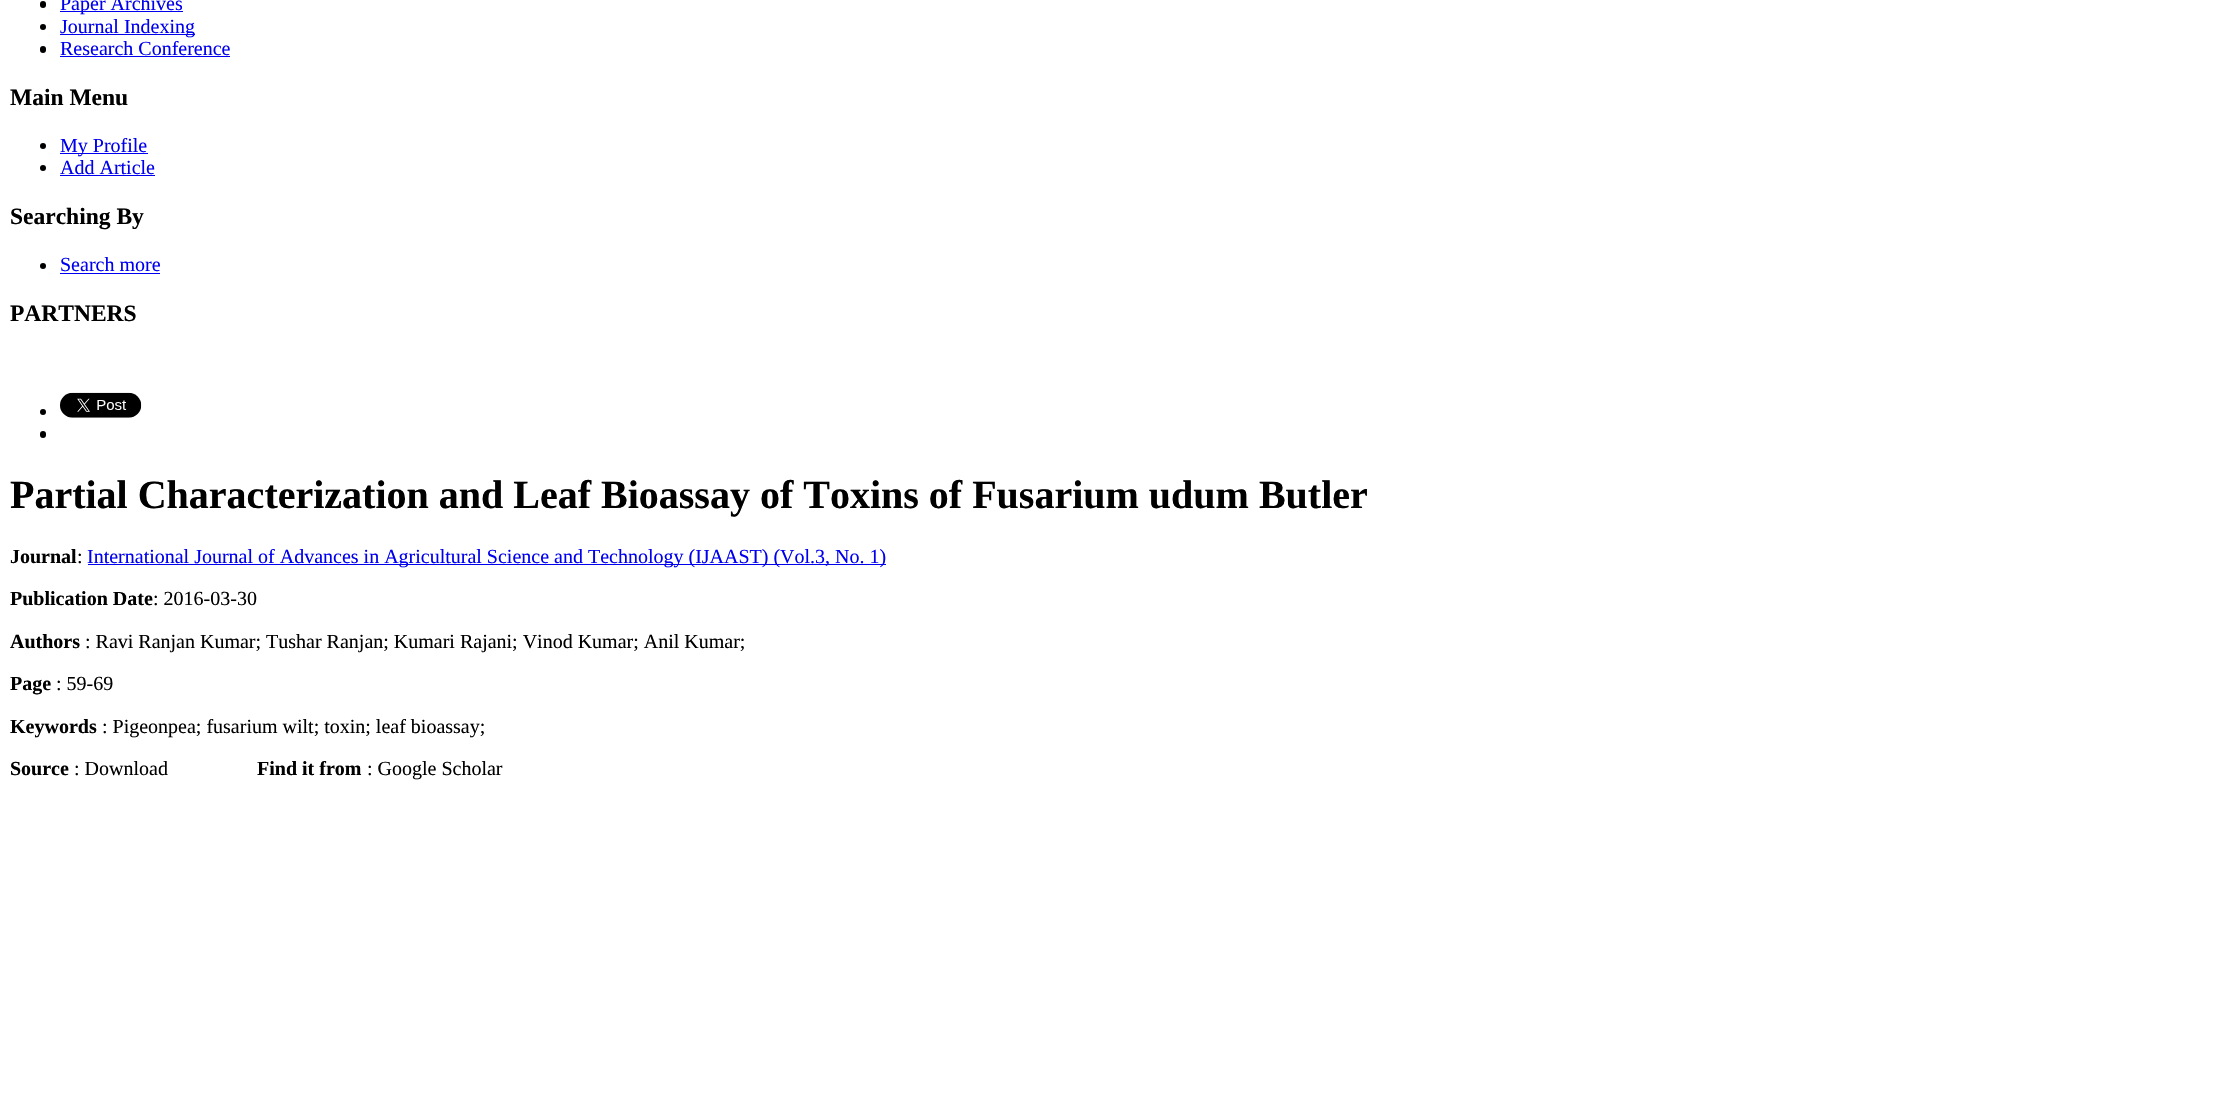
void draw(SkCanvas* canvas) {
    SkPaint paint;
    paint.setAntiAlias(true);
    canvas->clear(0xFFFFFFFF);
    paint.setColor(0xFF000000);
    canvas->drawRoundRect(SkRect::MakeXYWH(40, 1, 6, 7), 3, 3, paint);
    paint.setColor(0xFF0000EE);
    canvas->drawRect(SkRect::MakeXYWH(60, 11, 123, 1), paint);
    SkFont font1(fontMgr->matchFamilyStyle("Liberation Serif", SkFontStyle::Normal()), 20);
    font1.setSubpixel(true);
    canvas->drawString("Paper Archives", 60, 10, font1, paint);
    paint.setColor(0xFF000000);
    canvas->drawCircle(43, 27, 3, paint);
    paint.setColor(0xFF0000EE);
    canvas->drawRect(SkRect::MakeXYWH(60, 34, 135, 1), paint);
    canvas->drawString("Journal Indexing", 60, 33, font1, paint);
    paint.setColor(0xFF000000);
    canvas->drawRoundRect(SkRect::MakeXYWH(40, 46, 6, 7), 3, 3, paint);
    paint.setColor(0xFF0000EE);
    canvas->drawString("Research Conference", 60, 55, font1, paint);
    canvas->drawRect(SkRect::MakeXYWH(60, 56, 170, 1), paint);
    SkFont font2(fontMgr->matchFamilyStyle("Liberation Serif", SkFontStyle::Bold()), 23.5f);
    font2.setSubpixel(true);
    paint.setColor(0xFF000000);
    canvas->drawString("Main Menu", 10, 105, font2, paint);
    canvas->drawCircle(43, 146, 3, paint);
    paint.setColor(0xFF0000EE);
    canvas->drawRect(SkRect::MakeXYWH(60, 153, 88, 1), paint);
    canvas->drawString("My Profile", 60, 152, font1, paint);
    paint.setColor(0xFF000000);
    canvas->drawCircle(43, 168, 3, paint);
    paint.setColor(0xFF0000EE);
    canvas->drawString("Add Article", 60, 174, font1, paint);
    canvas->drawRect(SkRect::MakeXYWH(60, 175, 95, 1), paint);
    paint.setColor(0xFF000000);
    canvas->drawString("Searching By", 10, 224, font2, paint);
    canvas->drawCircle(43, 266, 3, paint);
    paint.setColor(0xFF0000EE);
    canvas->drawString("Search more", 60, 271, font1, paint);
    canvas->drawRect(SkRect::MakeXYWH(60, 273, 100, 1), paint);
    paint.setColor(0xFF000000);
    canvas->drawString("PARTNERS", 10, 321, font2, paint);
    canvas->drawCircle(43, 412, 3, paint);
    canvas->drawImageRect(SkImages::DeferredFromEncodedData(SkData::MakeFromFileName("img1.png")), SkRect::MakeXYWH(60, 392, 82, 26), SkSamplingOptions());
    canvas->drawRoundRect(SkRect::MakeXYWH(40, 431, 6, 7), 3, 3, paint);
    SkFont font3(fontMgr->matchFamilyStyle("Liberation Serif", SkFontStyle::Bold()), 40);
    font3.setSubpixel(true);
    canvas->drawString("Partial Characterization and Leaf Bioassay of Toxins of Fusarium udum Butler", 10, 508, font3, paint);
    SkFont font4(fontMgr->matchFamilyStyle("Liberation Serif", SkFontStyle::Bold()), 20);
    font4.setSubpixel(true);
    canvas->drawString("Journal", 10, 563, font4, paint);
    canvas->drawString(":", 77, 563, font1, paint);
    paint.setColor(0xFF0000EE);
    canvas->drawRect(SkRect::MakeXYWH(88, 564, 798, 1), paint);
    canvas->drawString("International Journal of Advances in Agricultural Science and Technology (IJAAST) (Vol.3, No. 1)", 87, 563, font1, paint);
    paint.setColor(0xFF000000);
    canvas->drawString("Publication Date", 10, 605, font4, paint);
    canvas->drawString(": 2016-03-30", 153, 605, font1, paint);
    canvas->drawString("Authors", 10, 648, font4, paint);
    canvas->drawString(": Ravi Ranjan Kumar; Tushar Ranjan; Kumari Rajani; Vinod Kumar; Anil Kumar;", 85, 648, font1, paint);
    canvas->drawString("Page", 10, 690, font4, paint);
    canvas->drawString(": 59-69", 56, 690, font1, paint);
    canvas->drawString("Keywords", 10, 733, font4, paint);
    canvas->drawString(": Pigeonpea; fusarium wilt; toxin; leaf bioassay;", 102, 733, font1, paint);
    canvas->drawString("Source", 10, 775, font4, paint);
    canvas->drawString(": Download", 74, 775, font1, paint);
    canvas->drawString("Find it from", 257, 775, font4, paint);
    canvas->drawString(": Google Scholar", 367, 775, font1, paint);
}
